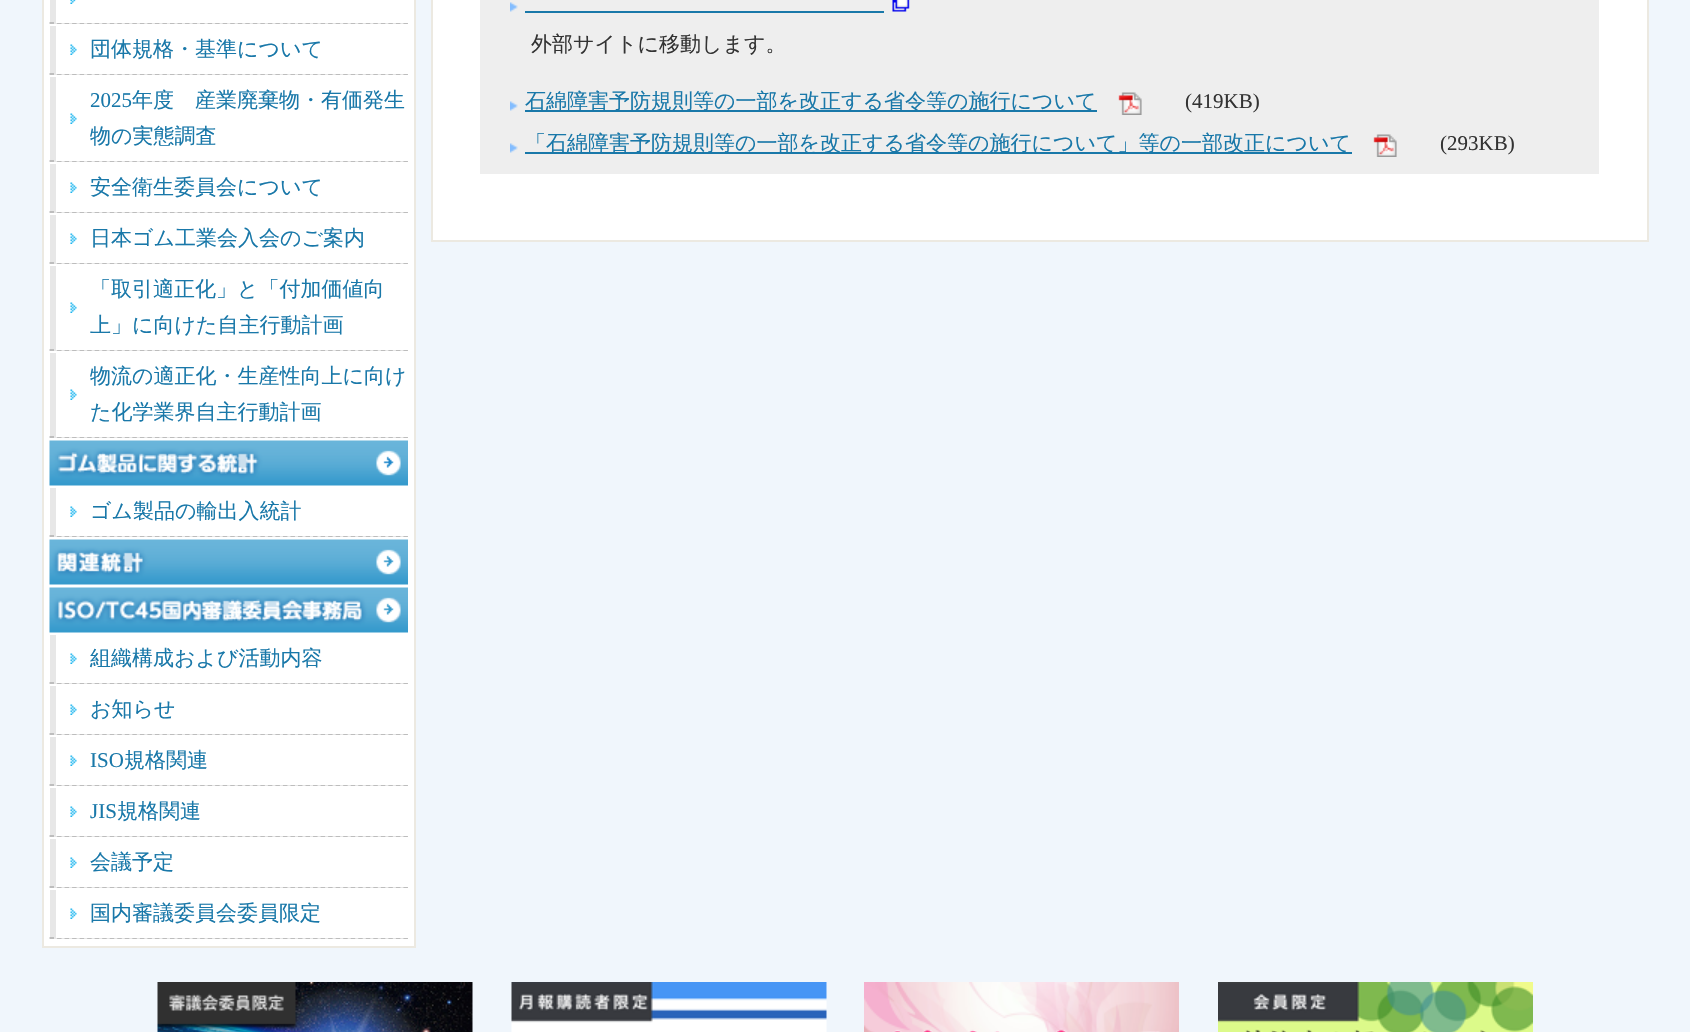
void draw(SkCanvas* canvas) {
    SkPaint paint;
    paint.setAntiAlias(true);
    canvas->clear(0xFFF0F6FC);
    paint.setColor(0xFFFFFFFF);
    canvas->drawRect(SkRect::MakeXYWH(43, -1, 372, 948), paint);
    paint.setStyle(SkPaint::kStroke_Style);
    paint.setStrokeWidth(2);
    paint.setColor(0xFFECE9E1);
    canvas->drawRect(SkRect::MakeXYWH(43, -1, 372, 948), paint);
    paint.setStyle(SkPaint::kFill_Style);
    paint.setColor(0xFFE7E7E7);
    canvas->drawRect(SkRect::MakeXYWH(50, 0, 358, 24), paint);
    paint.setStyle(SkPaint::kStroke_Style);
    paint.setStrokeWidth(1.5f);
    paint.setColor(0xFFB0B0B0);
    paint.setPathEffect(SkDashPathEffect::Make({{4.5f, 3.03f}}, 0));
    canvas->drawPath(SkPathBuilder().moveTo(49.5f, 23).lineTo(408, 23).detach(), paint);
    paint.setPathEffect(nullptr);
    paint.setStyle(SkPaint::kFill_Style);
    paint.setColor(0xFFFFFFFF);
    canvas->drawRect(SkRect::MakeXYWH(56, 0, 352, 23), paint);
    canvas->drawImageRect(SkImages::DeferredFromEncodedData(SkData::MakeFromFileName("img1.png")), SkRect::MakeXYWH(70, 0, 6, 4), SkSamplingOptions());
    paint.setColor(0xFFE7E7E7);
    canvas->drawRect(SkRect::MakeXYWH(50, 26, 358, 49), paint);
    paint.setStyle(SkPaint::kStroke_Style);
    paint.setColor(0xFFB0B0B0);
    paint.setPathEffect(SkDashPathEffect::Make({{4.5f, 3.03f}}, 0));
    canvas->drawPath(SkPathBuilder().moveTo(49.5f, 74).lineTo(408, 74).detach(), paint);
    paint.setPathEffect(nullptr);
    paint.setStyle(SkPaint::kFill_Style);
    paint.setColor(0xFFFFFFFF);
    canvas->drawRect(SkRect::MakeXYWH(56, 26, 352, 48), paint);
    canvas->drawImageRect(SkImages::DeferredFromEncodedData(SkData::MakeFromFileName("img2.png")), SkRect::MakeXYWH(70, 44, 7, 11), SkSamplingOptions());
    SkFont font1(fontMgr->matchFamilyStyle("WenQuanYi Zen Hei", SkFontStyle(500, SkFontStyle::kNormal_Width, SkFontStyle::kUpright_Slant)), 21);
    font1.setSubpixel(true);
    paint.setColor(0xFF1978A9);
    canvas->drawString("団体規格・基準について", 90, 56, font1, paint);
    paint.setColor(0xFFE7E7E7);
    canvas->drawRect(SkRect::MakeXYWH(50, 77, 358, 85), paint);
    paint.setStyle(SkPaint::kStroke_Style);
    paint.setColor(0xFFB0B0B0);
    paint.setPathEffect(SkDashPathEffect::Make({{4.5f, 3.03f}}, 0));
    canvas->drawPath(SkPathBuilder().moveTo(49.5f, 161).lineTo(408, 161).detach(), paint);
    paint.setPathEffect(nullptr);
    paint.setStyle(SkPaint::kFill_Style);
    paint.setColor(0xFFFFFFFF);
    canvas->drawRect(SkRect::MakeXYWH(56, 77, 352, 84), paint);
    canvas->drawImageRect(SkImages::DeferredFromEncodedData(SkData::MakeFromFileName("img2.png")), SkRect::MakeXYWH(70, 113, 7, 11), SkSamplingOptions());
    SkFont font2(fontMgr->matchFamilyStyle("Liberation Serif", SkFontStyle::Normal()), 21);
    font2.setSubpixel(true);
    paint.setColor(0xFF1978A9);
    canvas->drawString("2025", 90, 107, font2, paint);
    canvas->drawString("年度　産業廃棄物・有価発生", 132, 107, font1, paint);
    canvas->drawString("物の実態調査", 90, 143, font1, paint);
    paint.setColor(0xFFE7E7E7);
    canvas->drawRect(SkRect::MakeXYWH(50, 164, 358, 49), paint);
    paint.setStyle(SkPaint::kStroke_Style);
    paint.setColor(0xFFB0B0B0);
    paint.setPathEffect(SkDashPathEffect::Make({{4.5f, 3.03f}}, 0));
    canvas->drawPath(SkPathBuilder().moveTo(49.5f, 212).lineTo(408, 212).detach(), paint);
    paint.setPathEffect(nullptr);
    paint.setStyle(SkPaint::kFill_Style);
    paint.setColor(0xFFFFFFFF);
    canvas->drawRect(SkRect::MakeXYWH(56, 164, 352, 48), paint);
    canvas->drawImageRect(SkImages::DeferredFromEncodedData(SkData::MakeFromFileName("img2.png")), SkRect::MakeXYWH(70, 182, 7, 11), SkSamplingOptions());
    paint.setColor(0xFF1978A9);
    canvas->drawString("安全衛生委員会について", 90, 194, font1, paint);
    paint.setColor(0xFFE7E7E7);
    canvas->drawRect(SkRect::MakeXYWH(50, 215, 358, 49), paint);
    paint.setStyle(SkPaint::kStroke_Style);
    paint.setColor(0xFFB0B0B0);
    paint.setPathEffect(SkDashPathEffect::Make({{4.5f, 3.03f}}, 0));
    canvas->drawPath(SkPathBuilder().moveTo(49.5f, 263).lineTo(408, 263).detach(), paint);
    paint.setPathEffect(nullptr);
    paint.setStyle(SkPaint::kFill_Style);
    paint.setColor(0xFFFFFFFF);
    canvas->drawRect(SkRect::MakeXYWH(56, 215, 352, 48), paint);
    canvas->drawImageRect(SkImages::DeferredFromEncodedData(SkData::MakeFromFileName("img2.png")), SkRect::MakeXYWH(70, 233, 7, 11), SkSamplingOptions());
    paint.setColor(0xFF1978A9);
    canvas->drawString("日本ゴム工業会入会のご案内", 90, 245, font1, paint);
    paint.setColor(0xFFE7E7E7);
    canvas->drawRect(SkRect::MakeXYWH(50, 266, 358, 85), paint);
    paint.setStyle(SkPaint::kStroke_Style);
    paint.setColor(0xFFB0B0B0);
    paint.setPathEffect(SkDashPathEffect::Make({{4.5f, 3.03f}}, 0));
    canvas->drawPath(SkPathBuilder().moveTo(49.5f, 350).lineTo(408, 350).detach(), paint);
    paint.setPathEffect(nullptr);
    paint.setStyle(SkPaint::kFill_Style);
    paint.setColor(0xFFFFFFFF);
    canvas->drawRect(SkRect::MakeXYWH(56, 266, 352, 84), paint);
    canvas->drawImageRect(SkImages::DeferredFromEncodedData(SkData::MakeFromFileName("img2.png")), SkRect::MakeXYWH(70, 302, 7, 11), SkSamplingOptions());
    paint.setColor(0xFF1978A9);
    canvas->drawString("「取引適正化」と「付加価値向", 90, 296, font1, paint);
    canvas->drawString("上」に向けた自主行動計画", 90, 332, font1, paint);
    paint.setColor(0xFFE7E7E7);
    canvas->drawRect(SkRect::MakeXYWH(50, 353, 358, 85), paint);
    paint.setStyle(SkPaint::kStroke_Style);
    paint.setColor(0xFFB0B0B0);
    paint.setPathEffect(SkDashPathEffect::Make({{4.5f, 3.03f}}, 0));
    canvas->drawPath(SkPathBuilder().moveTo(49.5f, 437).lineTo(408, 437).detach(), paint);
    paint.setPathEffect(nullptr);
    paint.setStyle(SkPaint::kFill_Style);
    paint.setColor(0xFFFFFFFF);
    canvas->drawRect(SkRect::MakeXYWH(56, 353, 352, 84), paint);
    canvas->drawImageRect(SkImages::DeferredFromEncodedData(SkData::MakeFromFileName("img2.png")), SkRect::MakeXYWH(70, 389, 7, 11), SkSamplingOptions());
    paint.setColor(0xFF1978A9);
    canvas->drawString("物流の適正化・生産性向上に向け", 90, 383, font1, paint);
    canvas->drawString("た化学業界自主行動計画", 90, 419, font1, paint);
    canvas->drawImageRect(SkImages::DeferredFromEncodedData(SkData::MakeFromFileName("img3.png")), SkRect::MakeXYWH(49, 440, 359, 46), SkSamplingOptions());
    paint.setColor(0xFFE7E7E7);
    canvas->drawRect(SkRect::MakeXYWH(50, 488, 358, 49), paint);
    paint.setStyle(SkPaint::kStroke_Style);
    paint.setColor(0xFFB0B0B0);
    paint.setPathEffect(SkDashPathEffect::Make({{4.5f, 3.03f}}, 0));
    canvas->drawPath(SkPathBuilder().moveTo(49.5f, 536).lineTo(408, 536).detach(), paint);
    paint.setPathEffect(nullptr);
    paint.setStyle(SkPaint::kFill_Style);
    paint.setColor(0xFFFFFFFF);
    canvas->drawRect(SkRect::MakeXYWH(56, 488, 352, 48), paint);
    canvas->drawImageRect(SkImages::DeferredFromEncodedData(SkData::MakeFromFileName("img2.png")), SkRect::MakeXYWH(70, 506, 7, 11), SkSamplingOptions());
    paint.setColor(0xFF1978A9);
    canvas->drawString("ゴム製品の輸出入統計", 90, 518, font1, paint);
    canvas->drawImageRect(SkImages::DeferredFromEncodedData(SkData::MakeFromFileName("img4.png")), SkRect::MakeXYWH(49, 539, 359, 46), SkSamplingOptions());
    canvas->drawImageRect(SkImages::DeferredFromEncodedData(SkData::MakeFromFileName("img5.png")), SkRect::MakeXYWH(49, 587, 359, 46), SkSamplingOptions());
    paint.setColor(0xFFE7E7E7);
    canvas->drawRect(SkRect::MakeXYWH(50, 635, 358, 49), paint);
    paint.setStyle(SkPaint::kStroke_Style);
    paint.setColor(0xFFB0B0B0);
    paint.setPathEffect(SkDashPathEffect::Make({{4.5f, 3.03f}}, 0));
    canvas->drawPath(SkPathBuilder().moveTo(49.5f, 683).lineTo(408, 683).detach(), paint);
    paint.setPathEffect(nullptr);
    paint.setStyle(SkPaint::kFill_Style);
    paint.setColor(0xFFFFFFFF);
    canvas->drawRect(SkRect::MakeXYWH(56, 635, 352, 48), paint);
    canvas->drawImageRect(SkImages::DeferredFromEncodedData(SkData::MakeFromFileName("img2.png")), SkRect::MakeXYWH(70, 653, 7, 11), SkSamplingOptions());
    paint.setColor(0xFF1978A9);
    canvas->drawString("組織構成および活動内容", 90, 665, font1, paint);
    paint.setColor(0xFFE7E7E7);
    canvas->drawRect(SkRect::MakeXYWH(50, 686, 358, 49), paint);
    paint.setStyle(SkPaint::kStroke_Style);
    paint.setColor(0xFFB0B0B0);
    paint.setPathEffect(SkDashPathEffect::Make({{4.5f, 3.03f}}, 0));
    canvas->drawPath(SkPathBuilder().moveTo(49.5f, 734).lineTo(408, 734).detach(), paint);
    paint.setPathEffect(nullptr);
    paint.setStyle(SkPaint::kFill_Style);
    paint.setColor(0xFFFFFFFF);
    canvas->drawRect(SkRect::MakeXYWH(56, 686, 352, 48), paint);
    canvas->drawImageRect(SkImages::DeferredFromEncodedData(SkData::MakeFromFileName("img2.png")), SkRect::MakeXYWH(70, 704, 7, 11), SkSamplingOptions());
    paint.setColor(0xFF1978A9);
    canvas->drawString("お知らせ", 90, 716, font1, paint);
    paint.setColor(0xFFE7E7E7);
    canvas->drawRect(SkRect::MakeXYWH(50, 737, 358, 49), paint);
    paint.setStyle(SkPaint::kStroke_Style);
    paint.setColor(0xFFB0B0B0);
    paint.setPathEffect(SkDashPathEffect::Make({{4.5f, 3.03f}}, 0));
    canvas->drawPath(SkPathBuilder().moveTo(49.5f, 785).lineTo(408, 785).detach(), paint);
    paint.setPathEffect(nullptr);
    paint.setStyle(SkPaint::kFill_Style);
    paint.setColor(0xFFFFFFFF);
    canvas->drawRect(SkRect::MakeXYWH(56, 737, 352, 48), paint);
    canvas->drawImageRect(SkImages::DeferredFromEncodedData(SkData::MakeFromFileName("img2.png")), SkRect::MakeXYWH(70, 755, 7, 11), SkSamplingOptions());
    paint.setColor(0xFF1978A9);
    canvas->drawString("ISO", 90, 767, font2, paint);
    canvas->drawString("規格関連", 124, 767, font1, paint);
    paint.setColor(0xFFE7E7E7);
    canvas->drawRect(SkRect::MakeXYWH(50, 788, 358, 49), paint);
    paint.setStyle(SkPaint::kStroke_Style);
    paint.setColor(0xFFB0B0B0);
    paint.setPathEffect(SkDashPathEffect::Make({{4.5f, 3.03f}}, 0));
    canvas->drawPath(SkPathBuilder().moveTo(49.5f, 836).lineTo(408, 836).detach(), paint);
    paint.setPathEffect(nullptr);
    paint.setStyle(SkPaint::kFill_Style);
    paint.setColor(0xFFFFFFFF);
    canvas->drawRect(SkRect::MakeXYWH(56, 788, 352, 48), paint);
    canvas->drawImageRect(SkImages::DeferredFromEncodedData(SkData::MakeFromFileName("img2.png")), SkRect::MakeXYWH(70, 806, 7, 11), SkSamplingOptions());
    paint.setColor(0xFF1978A9);
    canvas->drawString("JIS", 90, 818, font2, paint);
    canvas->drawString("規格関連", 117, 818, font1, paint);
    paint.setColor(0xFFE7E7E7);
    canvas->drawRect(SkRect::MakeXYWH(50, 839, 358, 49), paint);
    paint.setStyle(SkPaint::kStroke_Style);
    paint.setColor(0xFFB0B0B0);
    paint.setPathEffect(SkDashPathEffect::Make({{4.5f, 3.03f}}, 0));
    canvas->drawPath(SkPathBuilder().moveTo(49.5f, 887).lineTo(408, 887).detach(), paint);
    paint.setPathEffect(nullptr);
    paint.setStyle(SkPaint::kFill_Style);
    paint.setColor(0xFFFFFFFF);
    canvas->drawRect(SkRect::MakeXYWH(56, 839, 352, 48), paint);
    canvas->drawImageRect(SkImages::DeferredFromEncodedData(SkData::MakeFromFileName("img2.png")), SkRect::MakeXYWH(70, 857, 7, 11), SkSamplingOptions());
    paint.setColor(0xFF1978A9);
    canvas->drawString("会議予定", 90, 869, font1, paint);
    paint.setColor(0xFFE7E7E7);
    canvas->drawRect(SkRect::MakeXYWH(50, 890, 358, 49), paint);
    paint.setStyle(SkPaint::kStroke_Style);
    paint.setColor(0xFFB0B0B0);
    paint.setPathEffect(SkDashPathEffect::Make({{4.5f, 3.03f}}, 0));
    canvas->drawPath(SkPathBuilder().moveTo(49.5f, 938).lineTo(408, 938).detach(), paint);
    paint.setPathEffect(nullptr);
    paint.setStyle(SkPaint::kFill_Style);
    paint.setColor(0xFFFFFFFF);
    canvas->drawRect(SkRect::MakeXYWH(56, 890, 352, 48), paint);
    canvas->drawImageRect(SkImages::DeferredFromEncodedData(SkData::MakeFromFileName("img2.png")), SkRect::MakeXYWH(70, 908, 7, 11), SkSamplingOptions());
    paint.setColor(0xFF1978A9);
    canvas->drawString("国内審議委員会委員限定", 90, 920, font1, paint);
    paint.setColor(0xFFFFFFFF);
    canvas->drawRect(SkRect::MakeXYWH(432, -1, 1216, 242), paint);
    paint.setStyle(SkPaint::kStroke_Style);
    paint.setStrokeWidth(2);
    paint.setColor(0xFFECE9E1);
    canvas->drawRect(SkRect::MakeXYWH(432, -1, 1216, 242), paint);
    paint.setStyle(SkPaint::kFill_Style);
    paint.setColor(0xFFEEEEEE);
    canvas->drawRect(SkRect::MakeXYWH(480, 0, 1119, 174), paint);
    canvas->drawImageRect(SkImages::DeferredFromEncodedData(SkData::MakeFromFileName("img6.png")), SkRect::MakeXYWH(510, 2, 8, 10), SkSamplingOptions());
    paint.setColor(0xFF1978A9);
    canvas->drawRect(SkRect::MakeXYWH(525, 11, 359, 2), paint);
    canvas->drawImageRect(SkImages::DeferredFromEncodedData(SkData::MakeFromFileName("img7.png")), SkRect::MakeXYWH(892, 0, 18, 12), SkSamplingOptions());
    paint.setColor(0xFF333333);
    canvas->drawString("外部サイトに移動します。", 531, 51, font1, paint);
    canvas->drawImageRect(SkImages::DeferredFromEncodedData(SkData::MakeFromFileName("img6.png")), SkRect::MakeXYWH(510, 101, 8, 10), SkSamplingOptions());
    paint.setColor(0xFF1978A9);
    canvas->drawRect(SkRect::MakeXYWH(525, 110, 572, 2), paint);
    canvas->drawString("石綿障害予防規則等の一部を改正する省令等の施行について", 525, 108, font1, paint);
    canvas->drawImageRect(SkImages::DeferredFromEncodedData(SkData::MakeFromFileName("img8.png")), SkRect::MakeXYWH(1118, 92, 24, 23), SkSamplingOptions());
    paint.setColor(0xFF333333);
    canvas->drawString("(419KB)", 1185, 108, font2, paint);
    canvas->drawImageRect(SkImages::DeferredFromEncodedData(SkData::MakeFromFileName("img6.png")), SkRect::MakeXYWH(510, 143, 8, 10), SkSamplingOptions());
    paint.setColor(0xFF1978A9);
    canvas->drawRect(SkRect::MakeXYWH(525, 152, 827, 2), paint);
    canvas->drawString("「石綿障害予防規則等の一部を改正する省令等の施行について」等の一部改正について", 525, 150, font1, paint);
    canvas->drawImageRect(SkImages::DeferredFromEncodedData(SkData::MakeFromFileName("img8.png")), SkRect::MakeXYWH(1373, 134, 24, 23), SkSamplingOptions());
    paint.setColor(0xFF333333);
    canvas->drawString("(293KB)", 1440, 150, font2, paint);
    canvas->drawImageRect(SkImages::DeferredFromEncodedData(SkData::MakeFromFileName("img9.png")), SkRect::MakeXYWH(157, 982, 316, 50), SkSamplingOptions());
    canvas->drawImageRect(SkImages::DeferredFromEncodedData(SkData::MakeFromFileName("img10.png")), SkRect::MakeXYWH(511, 982, 316, 50), SkSamplingOptions());
    canvas->drawImageRect(SkImages::DeferredFromEncodedData(SkData::MakeFromFileName("img11.png")), SkRect::MakeXYWH(864, 982, 315, 50), SkSamplingOptions());
    canvas->drawImageRect(SkImages::DeferredFromEncodedData(SkData::MakeFromFileName("img12.png")), SkRect::MakeXYWH(1218, 982, 315, 50), SkSamplingOptions());
}
